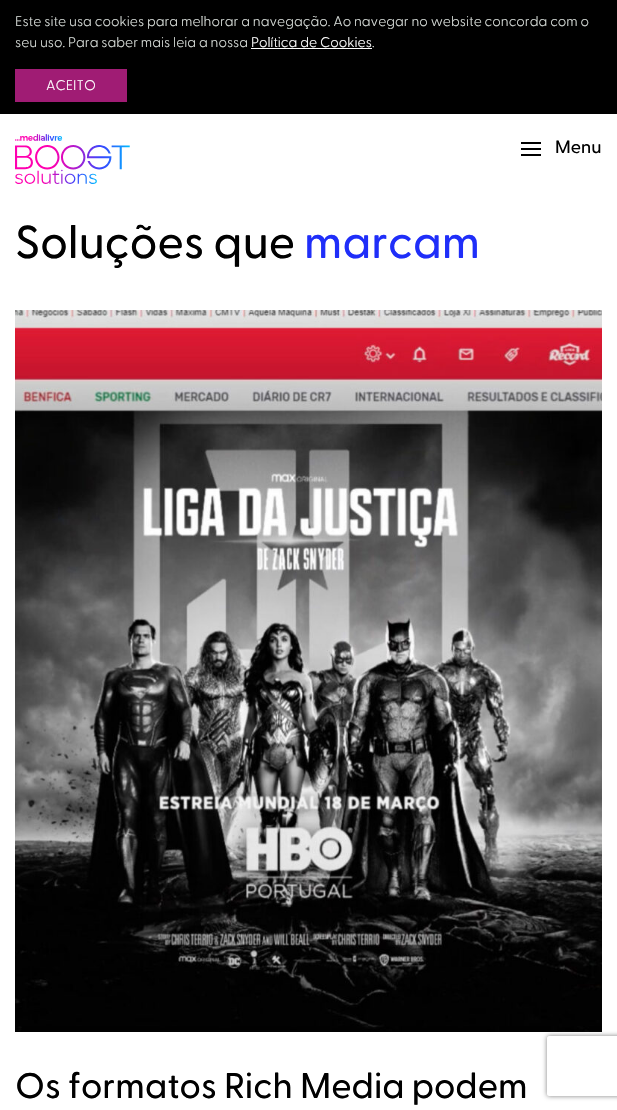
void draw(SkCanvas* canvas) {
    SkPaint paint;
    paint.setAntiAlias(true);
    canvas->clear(0xFFFFFFFF);
    paint.setColor(0xFF000000);
    canvas->drawRect(SkRect::MakeXYWH(0, 0, 617, 114), paint);
    SkFont font1(fontMgr->matchFamilyStyle("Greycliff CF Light", SkFontStyle(300, SkFontStyle::kNormal_Width, SkFontStyle::kUpright_Slant)), 14);
    font1.setSubpixel(true);
    paint.setColor(0xFFD6DBD7);
    canvas->drawString("Este site usa cookies para melhorar a navegação. Ao navegar no website concorda com o", 15, 26, font1, paint);
    canvas->drawString("seu uso. Para saber mais leia a nossa", 15, 47, font1, paint);
    paint.setColor(0xFFFFFFFF);
    canvas->drawString("Política de Cookies", 251, 47, font1, paint);
    canvas->drawRect(SkRect::MakeXYWH(251, 48, 121, 1), paint);
    paint.setColor(0xFFD6DBD7);
    canvas->drawString(".", 372, 47, font1, paint);
    paint.setColor(0xFFA01C74);
    canvas->drawRect(SkRect::MakeXYWH(15, 69, 112, 33), paint);
    paint.setColor(0xFFFFFFFF);
    canvas->drawString("ACEITO", 46, 90, font1, paint);
    canvas->drawImageRect(SkImages::DeferredFromEncodedData(SkData::MakeFromFileName("img1.png")), SkRect::MakeXYWH(15, 134, 115, 50), SkSamplingOptions());
    paint.setColor(0xFF000000);
    canvas->drawRect(SkRect::MakeXYWH(521, 142, 20, 2), paint);
    canvas->drawRect(SkRect::MakeXYWH(521, 148, 20, 2), paint);
    canvas->drawRect(SkRect::MakeXYWH(521, 154, 20, 2), paint);
    SkFont font2(fontMgr->matchFamilyStyle("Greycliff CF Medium", SkFontStyle(500, SkFontStyle::kNormal_Width, SkFontStyle::kUpright_Slant)), 18);
    font2.setSubpixel(true);
    canvas->drawString("Menu", 555, 153, font2, paint);
    SkFont font3(fontMgr->matchFamilyStyle("Greycliff CF Medium", SkFontStyle(500, SkFontStyle::kNormal_Width, SkFontStyle::kUpright_Slant)), 46.25f);
    font3.setSubpixel(true);
    canvas->drawString("Soluções que", 15, 258, font3, paint);
    paint.setColor(0xFF1F2EF9);
    canvas->drawString("marcam", 304, 258, font3, paint);
    canvas->drawImageRect(SkImages::DeferredFromEncodedData(SkData::MakeFromFileName("img2.png")), SkRect::MakeXYWH(15, 310, 587, 722), SkSamplingOptions());
    SkFont font4(fontMgr->matchFamilyStyle("Greycliff CF Medium", SkFontStyle(500, SkFontStyle::kNormal_Width, SkFontStyle::kUpright_Slant)), 35.75f);
    font4.setSubpixel(true);
    paint.setColor(0xFF000000);
    canvas->drawString("Os formatos Rich Media podem", 15, 1098, font4, paint);
    canvas->save();
    canvas->clipPath(SkPathBuilder(SkPathFillType::kEvenOdd).moveTo(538, 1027).lineTo(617, 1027).lineTo(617, 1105).lineTo(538, 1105).close().moveTo(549, 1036).lineTo(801, 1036).cubicTo(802, 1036, 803, 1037, 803, 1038).lineTo(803, 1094).cubicTo(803, 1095, 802, 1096, 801, 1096).lineTo(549, 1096).cubicTo(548, 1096, 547, 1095, 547, 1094).lineTo(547, 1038).cubicTo(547, 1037, 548, 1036, 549, 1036).close().detach(), true);
    paint.setColor(0xFF808080);
    paint.setMaskFilter(SkMaskFilter::MakeBlur(kNormal_SkBlurStyle, 2.5f));
    canvas->drawRoundRect(SkRect::MakeXYWH(547, 1036, 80, 60), 2, 2, paint);
    paint.setMaskFilter(nullptr);
    canvas->restore();
}
